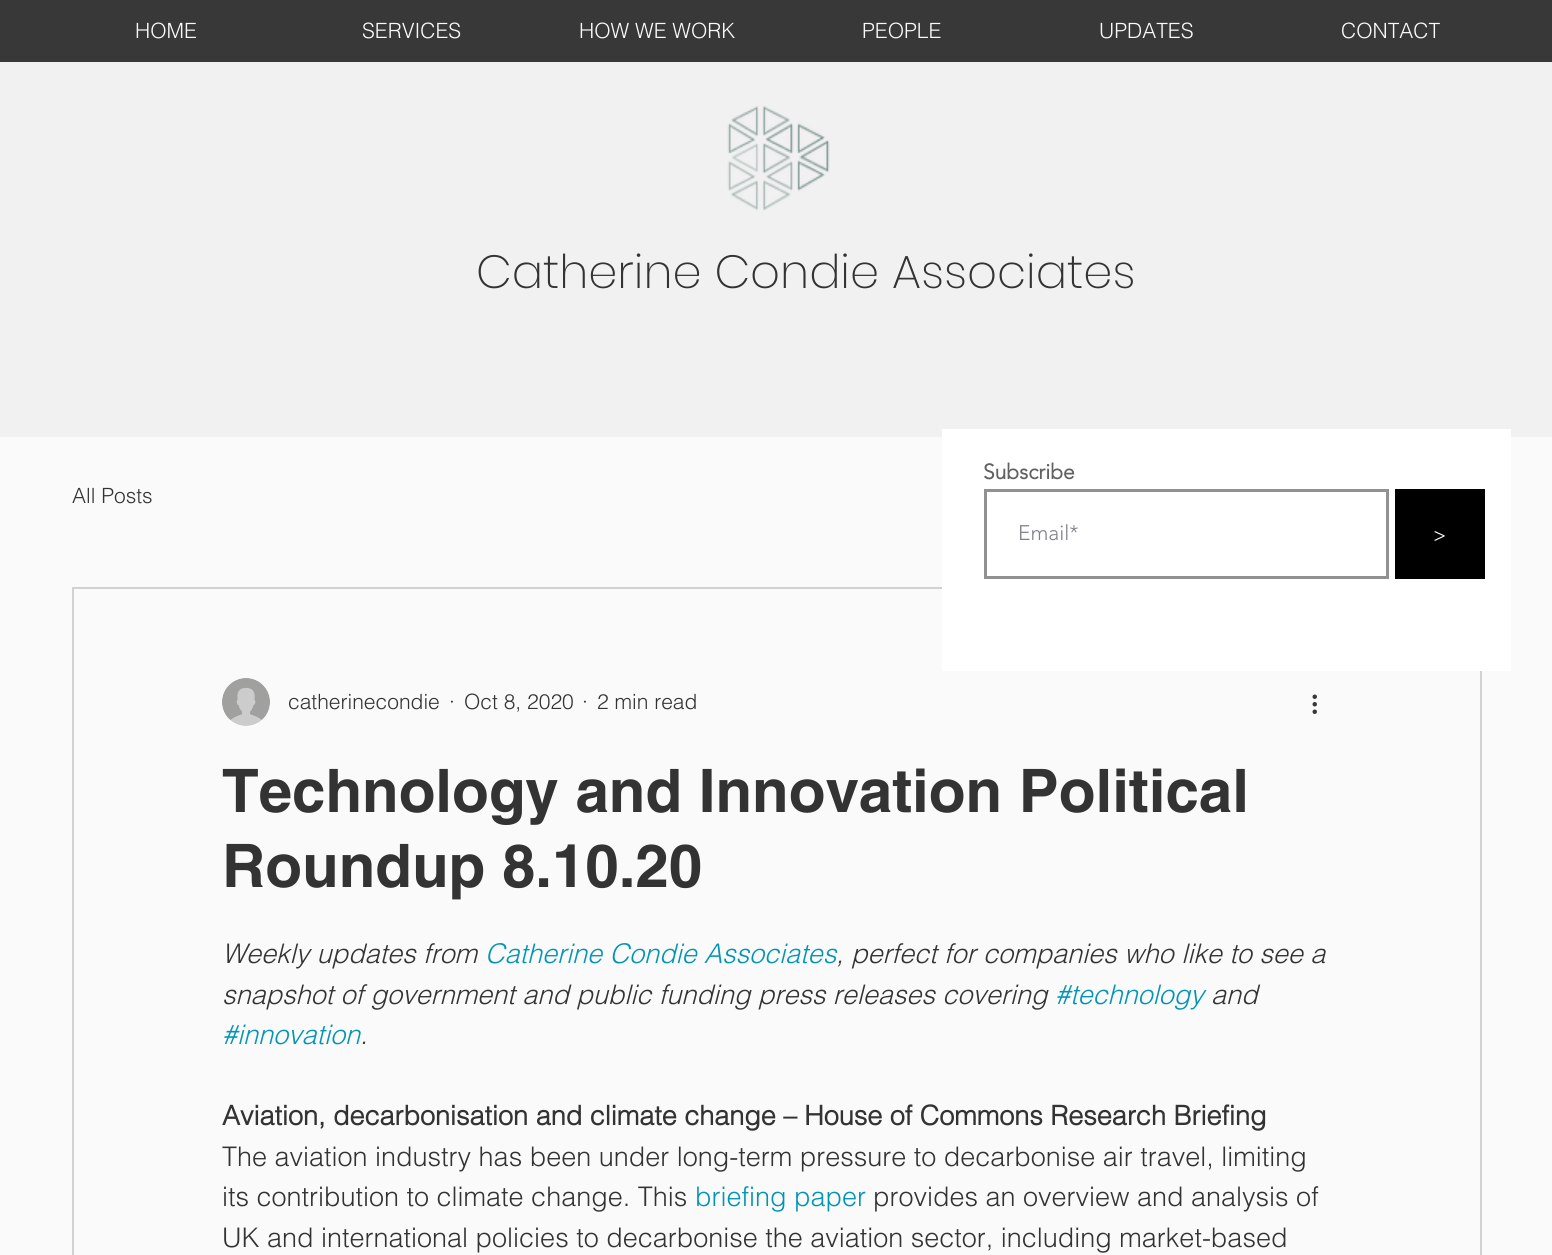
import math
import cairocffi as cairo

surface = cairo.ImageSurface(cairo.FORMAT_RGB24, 1552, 1255)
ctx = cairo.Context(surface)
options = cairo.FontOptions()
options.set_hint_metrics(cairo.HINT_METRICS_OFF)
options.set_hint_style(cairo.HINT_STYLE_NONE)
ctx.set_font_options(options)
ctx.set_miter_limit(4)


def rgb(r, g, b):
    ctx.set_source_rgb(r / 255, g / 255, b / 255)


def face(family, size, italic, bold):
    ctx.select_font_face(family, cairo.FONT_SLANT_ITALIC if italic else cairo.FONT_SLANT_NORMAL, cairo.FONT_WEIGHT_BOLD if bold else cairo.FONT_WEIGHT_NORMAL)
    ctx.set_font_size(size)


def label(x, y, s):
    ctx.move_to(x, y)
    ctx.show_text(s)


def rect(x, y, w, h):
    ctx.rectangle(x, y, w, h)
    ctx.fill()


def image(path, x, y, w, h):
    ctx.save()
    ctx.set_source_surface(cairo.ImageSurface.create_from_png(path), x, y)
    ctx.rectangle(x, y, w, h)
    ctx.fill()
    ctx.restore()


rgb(250, 250, 250)
ctx.paint()
rgb(56, 56, 56)
rect(0, 0, 1552, 62)
face('helvetica Light', 21, 0, 0)
rgb(250, 250, 250)
label(135, 38, 'HOME')
label(362, 38, 'SERVICES')
label(579, 38, 'HOW WE WORK')
label(862, 38, 'PEOPLE')
label(1099, 38, 'UPDATES')
label(1341, 38, 'CONTACT')
rgb(242, 241, 241)
rect(0, 62, 1552, 375)
image('image0.png', 727, 106, 103, 105)
face('Poppins ExtraLight', 46.5, 0, 0)
rgb(51, 51, 51)
label(476, 288, 'Catherine Condie Associates')
ctx.rectangle(73, 588, 1408, 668)
rgb(210, 209, 209)
ctx.stroke()
rgb(255, 255, 255)
rect(942, 429, 569, 242)
face('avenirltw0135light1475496', 21, 0, 1)
rgb(97, 97, 95)
label(983, 479, 'Subscribe')
ctx.rectangle(985.5, 490.5, 402, 87)
rgb(145, 145, 145)
ctx.set_line_width(3)
ctx.stroke()
face('avenirltw0135light1475496 Light', 21, 0, 0)
rgb(127, 128, 138)
label(1018, 540, 'Email*')
rgb(0, 0, 0)
rect(1395, 489, 90, 90)
face('helvetica Light', 20, 0, 0)
rgb(250, 250, 250)
label(1433, 541, '>')
face('helvetica Light', 21, 0, 0)
rgb(51, 51, 51)
label(72, 503, 'All Posts')
image('image1.png', 222, 678, 48, 48)
label(288, 709, 'catherinecondie')
label(449, 709, '·')
label(464, 709, 'Oct 8, 2020')
label(582, 709, '·')
label(597, 709, '2 min read')
image('image2.png', 1312, 694, 5, 20)
face('helvetica', 60, 0, 1)
label(222, 812, 'Technology and Innovation Political')
label(222, 887, 'Roundup 8.10.20')
face('helvetica Light', 27, 1, 0)
label(222, 963, 'Weekly updates from')
rgb(2, 148, 181)
label(485, 963, 'Catherine Condie Associates')
rgb(51, 51, 51)
label(836, 963, ', perfect for companies who like to see a')
label(222, 1004, 'snapshot of government and public funding press releases covering')
rgb(2, 148, 181)
label(1055, 1004, '#technology')
rgb(51, 51, 51)
label(1211, 1004, 'and')
rgb(2, 148, 181)
label(222, 1044, '#innovation')
rgb(51, 51, 51)
label(360, 1044, '.')
face('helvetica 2', 27, 0, 1)
label(222, 1125, 'Aviation, decarbonisation and climate change – House of Commons Research Briefing')
face('helvetica Light', 27, 0, 0)
label(222, 1166, 'The aviation industry has been under long-term pressure to decarbonise air travel, limiting')
label(222, 1206, 'its contribution to climate change. This')
rgb(2, 148, 181)
label(695, 1206, 'briefing paper')
rgb(51, 51, 51)
label(873, 1206, 'provides an overview and analysis of')
label(222, 1247, 'UK and international policies to decarbonise the aviation sector, including market-based')
surface.write_to_png('render.png')
